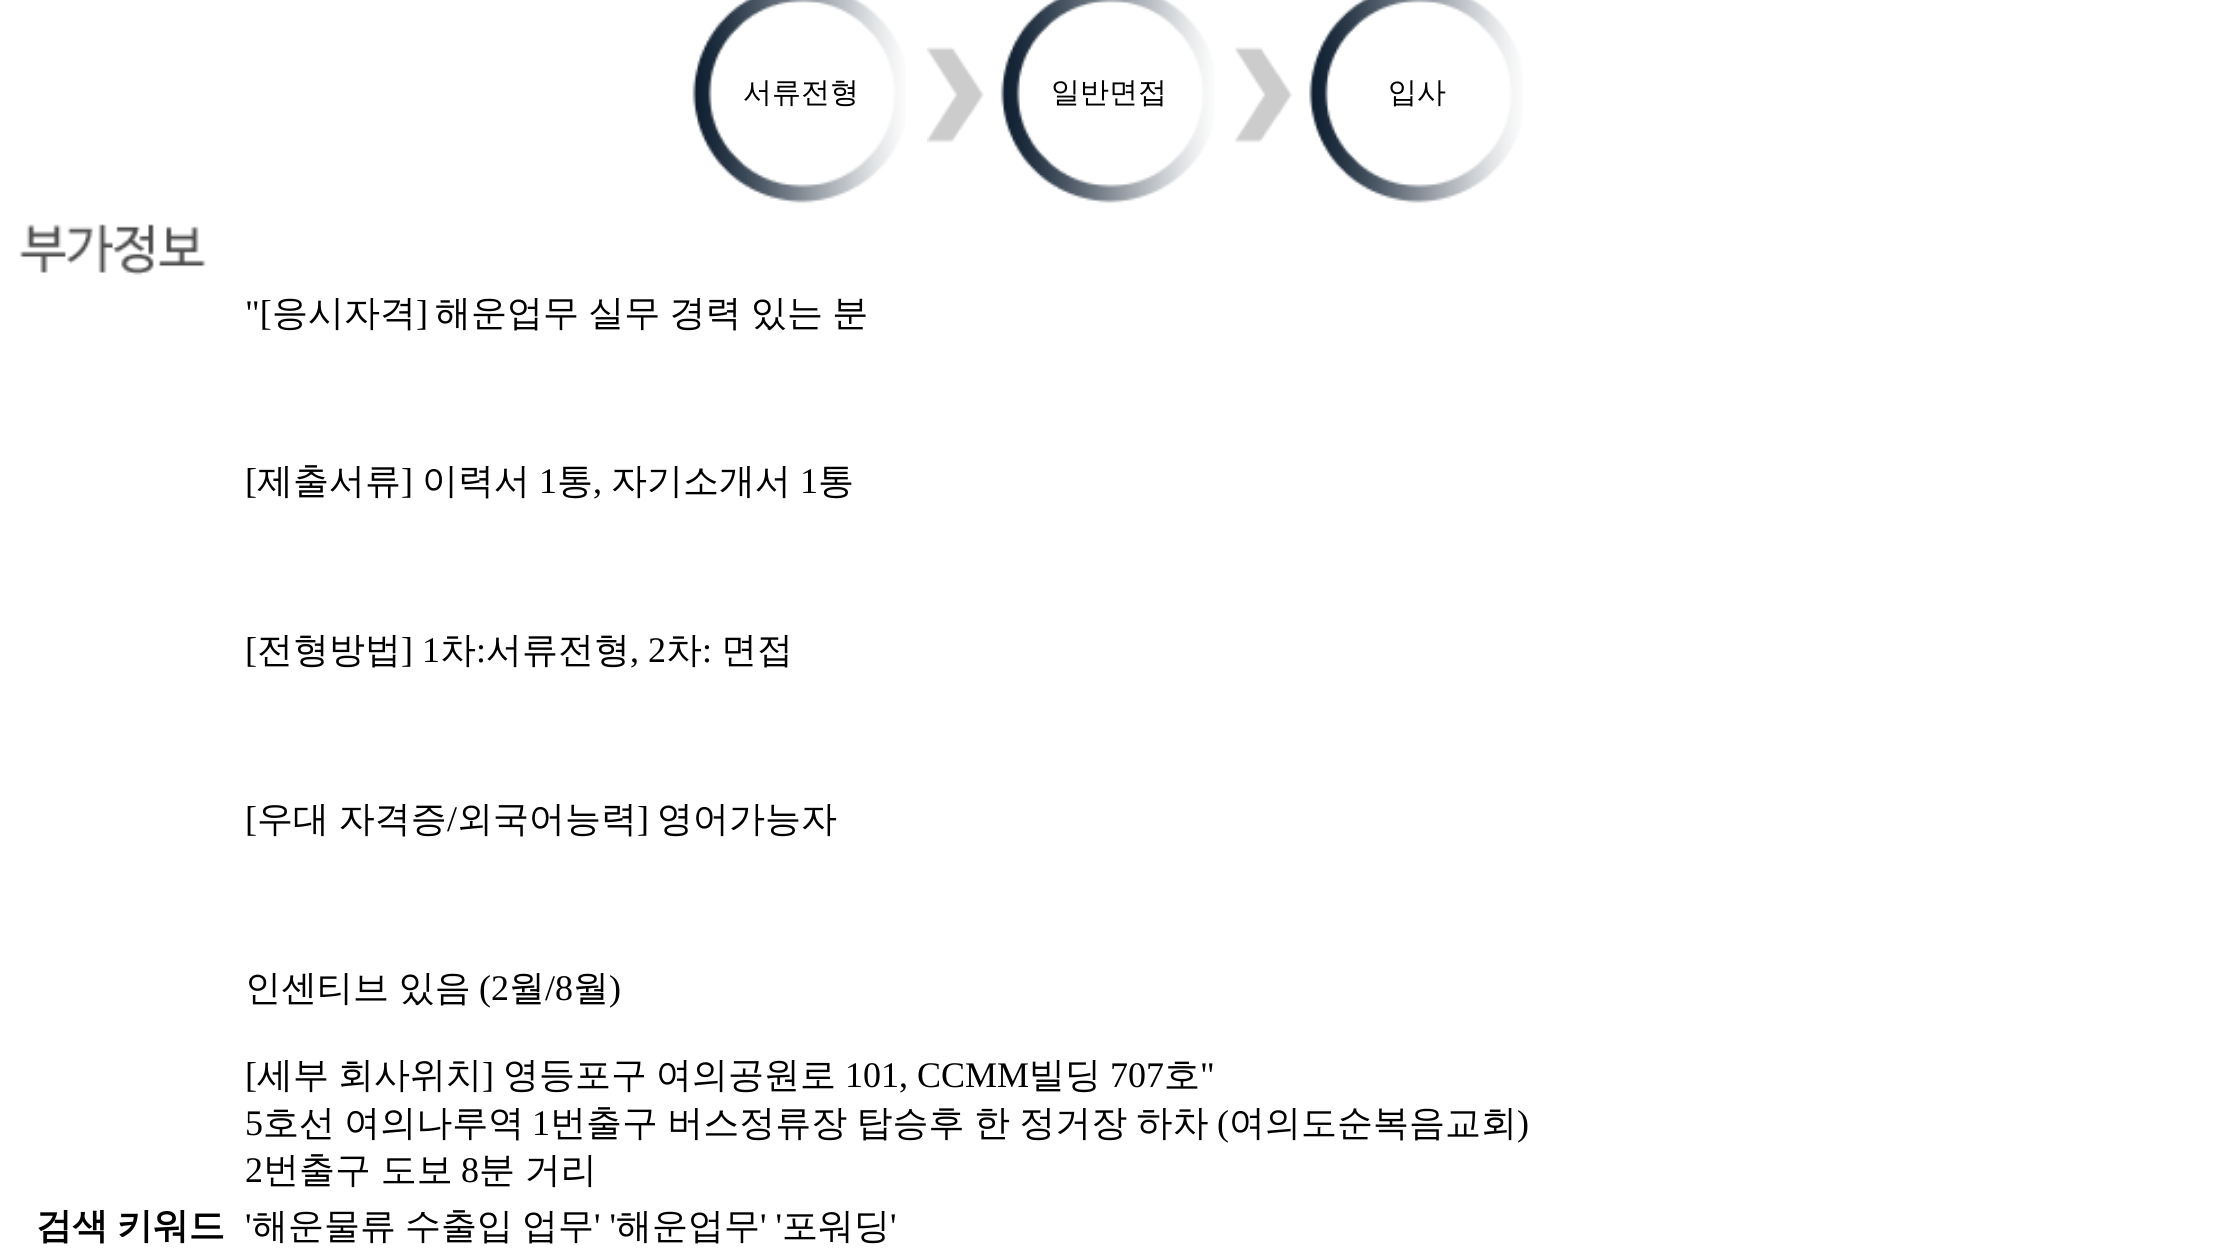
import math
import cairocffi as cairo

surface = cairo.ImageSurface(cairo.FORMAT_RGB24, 2217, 1252)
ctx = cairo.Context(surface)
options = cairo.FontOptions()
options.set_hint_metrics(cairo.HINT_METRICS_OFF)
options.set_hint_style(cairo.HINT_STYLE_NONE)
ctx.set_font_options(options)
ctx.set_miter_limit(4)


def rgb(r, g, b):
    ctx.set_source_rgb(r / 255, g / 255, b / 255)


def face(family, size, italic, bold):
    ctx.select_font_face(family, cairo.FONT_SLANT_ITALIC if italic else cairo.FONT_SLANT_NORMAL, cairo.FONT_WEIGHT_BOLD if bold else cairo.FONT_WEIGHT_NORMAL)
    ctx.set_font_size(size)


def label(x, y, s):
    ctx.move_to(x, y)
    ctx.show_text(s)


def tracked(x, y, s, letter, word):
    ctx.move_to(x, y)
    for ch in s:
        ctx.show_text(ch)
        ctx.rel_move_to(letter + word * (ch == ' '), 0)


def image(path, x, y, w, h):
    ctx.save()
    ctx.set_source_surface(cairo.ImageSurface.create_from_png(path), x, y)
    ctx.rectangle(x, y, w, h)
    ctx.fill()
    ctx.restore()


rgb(255, 255, 255)
ctx.paint()
image('image0.png', 692, 0, 214, 204)
face('WenQuanYi Zen Hei Medium', 29, 0, 0)
rgb(0, 0, 0)
label(743, 102, '서류전형')
image('image1.png', 927, 47, 57, 96)
image('image2.png', 1000, 0, 215, 204)
label(1051, 102, '일반면접')
image('image3.png', 1235, 47, 57, 96)
image('image4.png', 1309, 0, 214, 204)
label(1388, 102, '입사')
image('image5.png', 19, 224, 187, 51)
face('Liberation Serif', 36, 0, 0)
label(245, 325, '"[')
face('WenQuanYi Zen Hei Medium', 36, 0, 0)
label(272, 325, '응시자격')
face('Liberation Serif', 36, 0, 0)
label(416, 325, ']')
face('WenQuanYi Zen Hei Medium', 36, 0, 0)
tracked(435, 325, '해운업무 실무 경력 있는 분', 0, -1.5)
face('Liberation Serif', 36, 0, 0)
label(245, 493, '[')
face('WenQuanYi Zen Hei Medium', 36, 0, 0)
label(257, 493, '제출서류')
face('Liberation Serif', 36, 0, 0)
label(401, 493, ']')
face('WenQuanYi Zen Hei Medium', 36, 0, 0)
label(422, 493, '이력서')
face('Liberation Serif', 36, 0, 0)
label(539, 493, '1')
face('WenQuanYi Zen Hei Medium', 36, 0, 0)
label(557, 493, '통')
label(611, 493, '자기소개서')
face('Liberation Serif', 36, 0, 0)
label(800, 493, '1')
face('WenQuanYi Zen Hei Medium', 36, 0, 0)
label(818, 493, '통')
face('Liberation Serif', 36, 0, 0)
label(593, 493, ',')
label(245, 662, '[')
face('WenQuanYi Zen Hei Medium', 36, 0, 0)
label(257, 662, '전형방법')
face('Liberation Serif', 36, 0, 0)
label(401, 662, '] 1')
face('WenQuanYi Zen Hei Medium', 36, 0, 0)
label(440, 662, '차')
face('Liberation Serif', 36, 0, 0)
label(476, 662, ':')
face('WenQuanYi Zen Hei Medium', 36, 0, 0)
label(486, 662, '서류전형')
face('Liberation Serif', 36, 0, 0)
label(630, 662, ', 2')
face('WenQuanYi Zen Hei Medium', 36, 0, 0)
label(666, 662, '차')
face('Liberation Serif', 36, 0, 0)
label(702, 662, ':')
face('WenQuanYi Zen Hei Medium', 36, 0, 0)
label(721, 662, '면접')
face('Liberation Serif', 36, 0, 0)
label(245, 831, '[')
face('WenQuanYi Zen Hei Medium', 36, 0, 0)
tracked(257, 831, '우대 자격증', 0, -1)
face('Liberation Serif', 36, 0, 0)
label(447, 831, '/')
face('WenQuanYi Zen Hei Medium', 36, 0, 0)
label(457, 831, '외국어능력')
face('Liberation Serif', 36, 0, 0)
label(637, 831, ']')
face('WenQuanYi Zen Hei Medium', 36, 0, 0)
label(657, 831, '영어가능자')
tracked(245, 1000, '인센티브 있음', 0, -1)
face('Liberation Serif', 36, 0, 0)
label(479, 1000, '(2')
face('WenQuanYi Zen Hei Medium', 36, 0, 0)
label(509, 1000, '월')
face('Liberation Serif', 36, 0, 0)
label(545, 1000, '/8')
face('WenQuanYi Zen Hei Medium', 36, 0, 0)
label(573, 1000, '월')
face('Liberation Serif', 36, 0, 0)
label(609, 1000, ')')
label(245, 1087, '[')
face('WenQuanYi Zen Hei Medium', 36, 0, 0)
label(257, 1087, '세부')
label(338, 1087, '회사위치')
face('Liberation Serif', 36, 0, 0)
label(482, 1087, ']')
face('WenQuanYi Zen Hei Medium', 36, 0, 0)
label(503, 1087, '영등포구')
label(656, 1087, '여의공원로')
face('Liberation Serif', 36, 0, 0)
label(845, 1087, '101, CCMM')
face('WenQuanYi Zen Hei Medium', 36, 0, 0)
label(1029, 1087, '빌딩')
face('Liberation Serif', 36, 0, 0)
label(1110, 1087, '707')
face('WenQuanYi Zen Hei Medium', 36, 0, 0)
label(1164, 1087, '호')
face('Liberation Serif', 36, 0, 0)
label(1200, 1087, '"')
label(245, 1135, '5')
face('WenQuanYi Zen Hei Medium', 36, 0, 0)
tracked(263, 1135, '호선 여의나루역', 0, -1.5)
face('Liberation Serif', 36, 0, 0)
label(532, 1135, '1')
face('WenQuanYi Zen Hei Medium', 36, 0, 0)
tracked(550, 1135, '번출구 버스정류장 탑승후 한 정거장 하차', 0, -1.5)
face('Liberation Serif', 36, 0, 0)
label(1217, 1135, '(')
face('WenQuanYi Zen Hei Medium', 36, 0, 0)
label(1229, 1135, '여의도순복음교회')
face('Liberation Serif', 36, 0, 0)
label(1517, 1135, ')')
label(245, 1182, '2')
face('WenQuanYi Zen Hei Medium', 36, 0, 0)
tracked(263, 1182, '번출구 도보', 0, -1)
face('Liberation Serif', 36, 0, 0)
label(461, 1182, '8')
face('WenQuanYi Zen Hei Medium', 36, 0, 0)
tracked(479, 1182, '분 거리', 0, -1)
face('WenQuanYi Zen Hei', 36, 0, 1)
tracked(36, 1238, '검색 키워드', 0, -2)
face('Liberation Serif', 36, 0, 0)
label(245, 1238, '\'')
face('WenQuanYi Zen Hei Medium', 36, 0, 0)
label(252, 1238, '해운물류')
label(405, 1238, '수출입')
label(522, 1238, '업무')
face('Liberation Serif', 36, 0, 0)
label(594, 1238, '\' \'')
face('WenQuanYi Zen Hei Medium', 36, 0, 0)
label(616, 1238, '해운업무')
face('Liberation Serif', 36, 0, 0)
label(760, 1238, '\' \'')
face('WenQuanYi Zen Hei Medium', 36, 0, 0)
label(782, 1238, '포워딩')
face('Liberation Serif', 36, 0, 0)
label(890, 1238, '\'')
surface.write_to_png('render.png')
